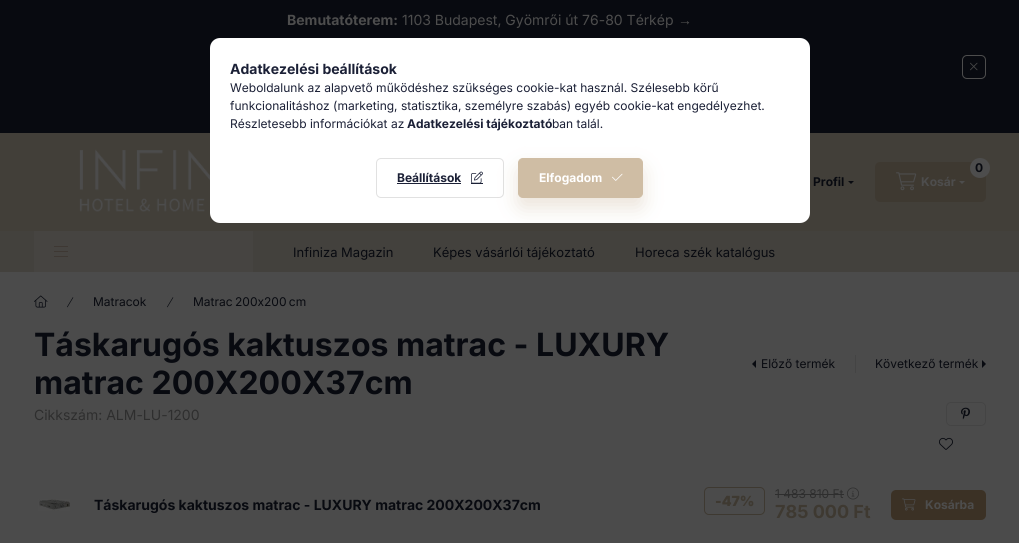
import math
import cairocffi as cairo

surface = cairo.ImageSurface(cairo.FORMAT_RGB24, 1019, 543)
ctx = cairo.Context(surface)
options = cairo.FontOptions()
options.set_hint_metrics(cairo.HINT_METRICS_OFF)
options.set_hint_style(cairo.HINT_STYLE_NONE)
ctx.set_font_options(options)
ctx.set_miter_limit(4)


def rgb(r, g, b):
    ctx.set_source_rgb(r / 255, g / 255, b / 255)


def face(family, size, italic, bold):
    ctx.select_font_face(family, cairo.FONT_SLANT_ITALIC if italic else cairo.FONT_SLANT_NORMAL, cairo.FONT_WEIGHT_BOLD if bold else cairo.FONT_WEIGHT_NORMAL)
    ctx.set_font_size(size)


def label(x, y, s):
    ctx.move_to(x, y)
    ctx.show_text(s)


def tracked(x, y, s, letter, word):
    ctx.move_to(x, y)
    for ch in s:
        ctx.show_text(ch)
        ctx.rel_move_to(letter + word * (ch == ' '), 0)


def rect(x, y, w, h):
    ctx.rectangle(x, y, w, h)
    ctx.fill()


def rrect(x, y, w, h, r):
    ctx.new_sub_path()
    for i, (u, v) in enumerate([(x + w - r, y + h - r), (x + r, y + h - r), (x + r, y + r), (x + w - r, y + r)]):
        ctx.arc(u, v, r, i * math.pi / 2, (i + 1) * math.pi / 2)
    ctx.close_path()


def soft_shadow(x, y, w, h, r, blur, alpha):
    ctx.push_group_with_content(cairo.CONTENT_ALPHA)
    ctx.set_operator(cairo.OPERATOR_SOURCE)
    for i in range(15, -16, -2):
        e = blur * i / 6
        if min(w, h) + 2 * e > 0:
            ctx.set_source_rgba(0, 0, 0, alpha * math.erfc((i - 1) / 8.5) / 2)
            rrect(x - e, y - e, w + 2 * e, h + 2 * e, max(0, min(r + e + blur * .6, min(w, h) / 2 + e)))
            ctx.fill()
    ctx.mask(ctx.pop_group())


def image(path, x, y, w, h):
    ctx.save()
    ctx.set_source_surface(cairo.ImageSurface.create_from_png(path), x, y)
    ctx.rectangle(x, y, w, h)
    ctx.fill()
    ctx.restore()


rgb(75, 75, 75)
ctx.paint()
rgb(8, 10, 16)
rect(0, 0, 1019, 133)
face('Inter', 14, 0, 1)
rgb(77, 77, 77)
label(287, 25, 'Bemutatóterem:')
face('Inter', 14, 0, 0)
label(402, 25, '1103 Budapest, Gyömrői út 76-80 Térkép')
face('Liberation Sans', 14, 0, 0)
label(678, 25, '→')
rrect(962.5, 55.5, 23, 23, 4.5)
ctx.set_line_width(1)
ctx.stroke()
image('image0.png', 970, 62, 8, 9)
rgb(66, 63, 57)
rect(0, 133, 1019, 98)
image('image1.png', 79, 149, 131, 63)
face('Inter', 12, 0, 1)
rgb(8, 10, 16)
label(813, 186, 'Profil')
ctx.new_path()
ctx.move_to(848, 181)
ctx.line_to(854, 181)
ctx.line_to(851, 184)
ctx.close_path()
ctx.fill()
rgb(62, 57, 49)
rrect(875, 162, 111, 40, 5)
ctx.fill()
rgb(77, 77, 77)
ctx.arc(980, 168, 10, 0, 2 * math.pi)
ctx.fill()
rgb(8, 10, 16)
label(975, 172, '0')
image('image2.png', 896, 172, 21, 19)
rgb(77, 77, 77)
label(921, 186, 'Kosár')
ctx.new_path()
ctx.move_to(959, 181)
ctx.line_to(965, 181)
ctx.line_to(962, 184)
ctx.close_path()
ctx.fill()
rgb(67, 65, 61)
rect(0, 231, 1019, 41)
rgb(70, 68, 65)
rect(34, 231, 219, 41)
rgb(62, 56, 51)
rect(54, 246, 14, 1)
rect(54, 251, 14, 1)
rect(54, 256, 14, 1)
face('Inter', 13, 0, 0)
rgb(8, 10, 16)
label(293, 257, 'Infiniza Magazin')
label(433, 257, 'Képes vásárlói tájékoztató')
label(635, 257, 'Horeca szék katalógus')
image('image3.png', 34, 295, 14, 13)
image('image4.png', 67, 297, 7, 11)
face('Inter', 12, 0, 0)
label(93, 306, 'Matracok')
image('image4.png', 167, 297, 7, 11)
tracked(193, 306, 'Matrac 200x200 cm', 0, -1)
face('Inter', 32, 0, 1)
label(34, 356, 'Táskarugós kaktuszos matrac - LUXURY')
label(34, 394, 'matrac 200X200X37cm')
ctx.new_path()
ctx.move_to(756, 368)
ctx.line_to(756, 360)
ctx.line_to(752, 364)
ctx.close_path()
ctx.fill()
face('Inter', 12, 0, 0)
label(761, 368, 'Előző termék')
rgb(68, 68, 68)
rect(855, 355, 1, 18)
rgb(8, 10, 16)
label(875, 368, 'Következő termék')
ctx.new_path()
ctx.move_to(982, 368)
ctx.line_to(982, 360)
ctx.line_to(986, 364)
ctx.close_path()
ctx.fill()
face('Inter', 14, 0, 0)
rgb(46, 46, 46)
label(34, 420, 'Cikkszám: ALM-LU-1200')
rrect(946.5, 402.5, 39, 23, 4.5)
rgb(68, 68, 68)
ctx.stroke()
image('image5.png', 961, 407, 9, 13)
image('image6.png', 939, 437, 14, 13)
image('image7.png', 38, 499, 32, 12)
face('Inter', 14, 0, 1)
rgb(8, 10, 16)
label(94, 510, 'Táskarugós kaktuszos matrac - LUXURY matrac 200X200X37cm')
rrect(704.5, 487.5, 60, 27, 4.5)
rgb(62, 57, 49)
ctx.stroke()
face('Inter Black', 14, 0, 0)
label(715, 506, '-47%')
face('Inter', 12, 0, 0)
rgb(46, 46, 46)
label(775, 498, '1 483 810 Ft')
rect(775, 494, 69, 1)
image('image8.png', 847, 487, 12, 13)
face('Inter', 18, 0, 1)
rgb(62, 57, 49)
label(775, 518, '785 000 Ft')
rgb(59, 49, 37)
rrect(891, 490, 95, 30, 5)
ctx.fill()
image('image9.png', 902, 498, 14, 13)
face('Inter', 12, 0, 1)
rgb(77, 77, 77)
label(925, 509, 'Kosárba')
rgb(255, 255, 255)
rrect(210, 38, 600, 185, 10)
ctx.fill()
face('Inter', 14, 0, 1)
rgb(27, 32, 54)
label(230, 74, 'Adatkezelési beállítások')
face('Inter', 12, 0, 0)
label(230, 92, 'Weboldalunk az alapvető működéshez szükséges cookie-kat használ. Szélesebb körű')
label(230, 110, 'funkcionalitáshoz (marketing, statisztika, személyre szabás) egyéb cookie-kat engedélyezhet.')
label(230, 128, 'Részletesebb információkat az')
face('Inter', 12, 0, 1)
label(407, 128, 'Adatkezelési tájékoztató')
face('Inter', 12, 0, 0)
label(552, 128, 'ban talál.')
rrect(376.5, 158.5, 127, 39, 4.5)
rgb(225, 225, 225)
ctx.stroke()
face('Inter', 12, 0, 1)
rgb(27, 32, 54)
label(397, 182, 'Beállítások')
rect(397, 183, 64, 1)
image('image10.png', 471, 171, 12, 12)
rect(471, 183, 12, 1)
ctx.save()
rrect(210, 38, 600, 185, 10)
ctx.clip()
rgb(207, 189, 164)
soft_shadow(518, 168, 125, 40, 5, 10, 0.4)
ctx.restore()
rgb(207, 189, 164)
rrect(518.5, 158.5, 124, 39, 4.5)
ctx.fill_preserve()
ctx.stroke()
rgb(255, 255, 255)
label(539, 182, 'Elfogadom')
image('image11.png', 612, 173, 11, 8)
surface.write_to_png('render.png')
